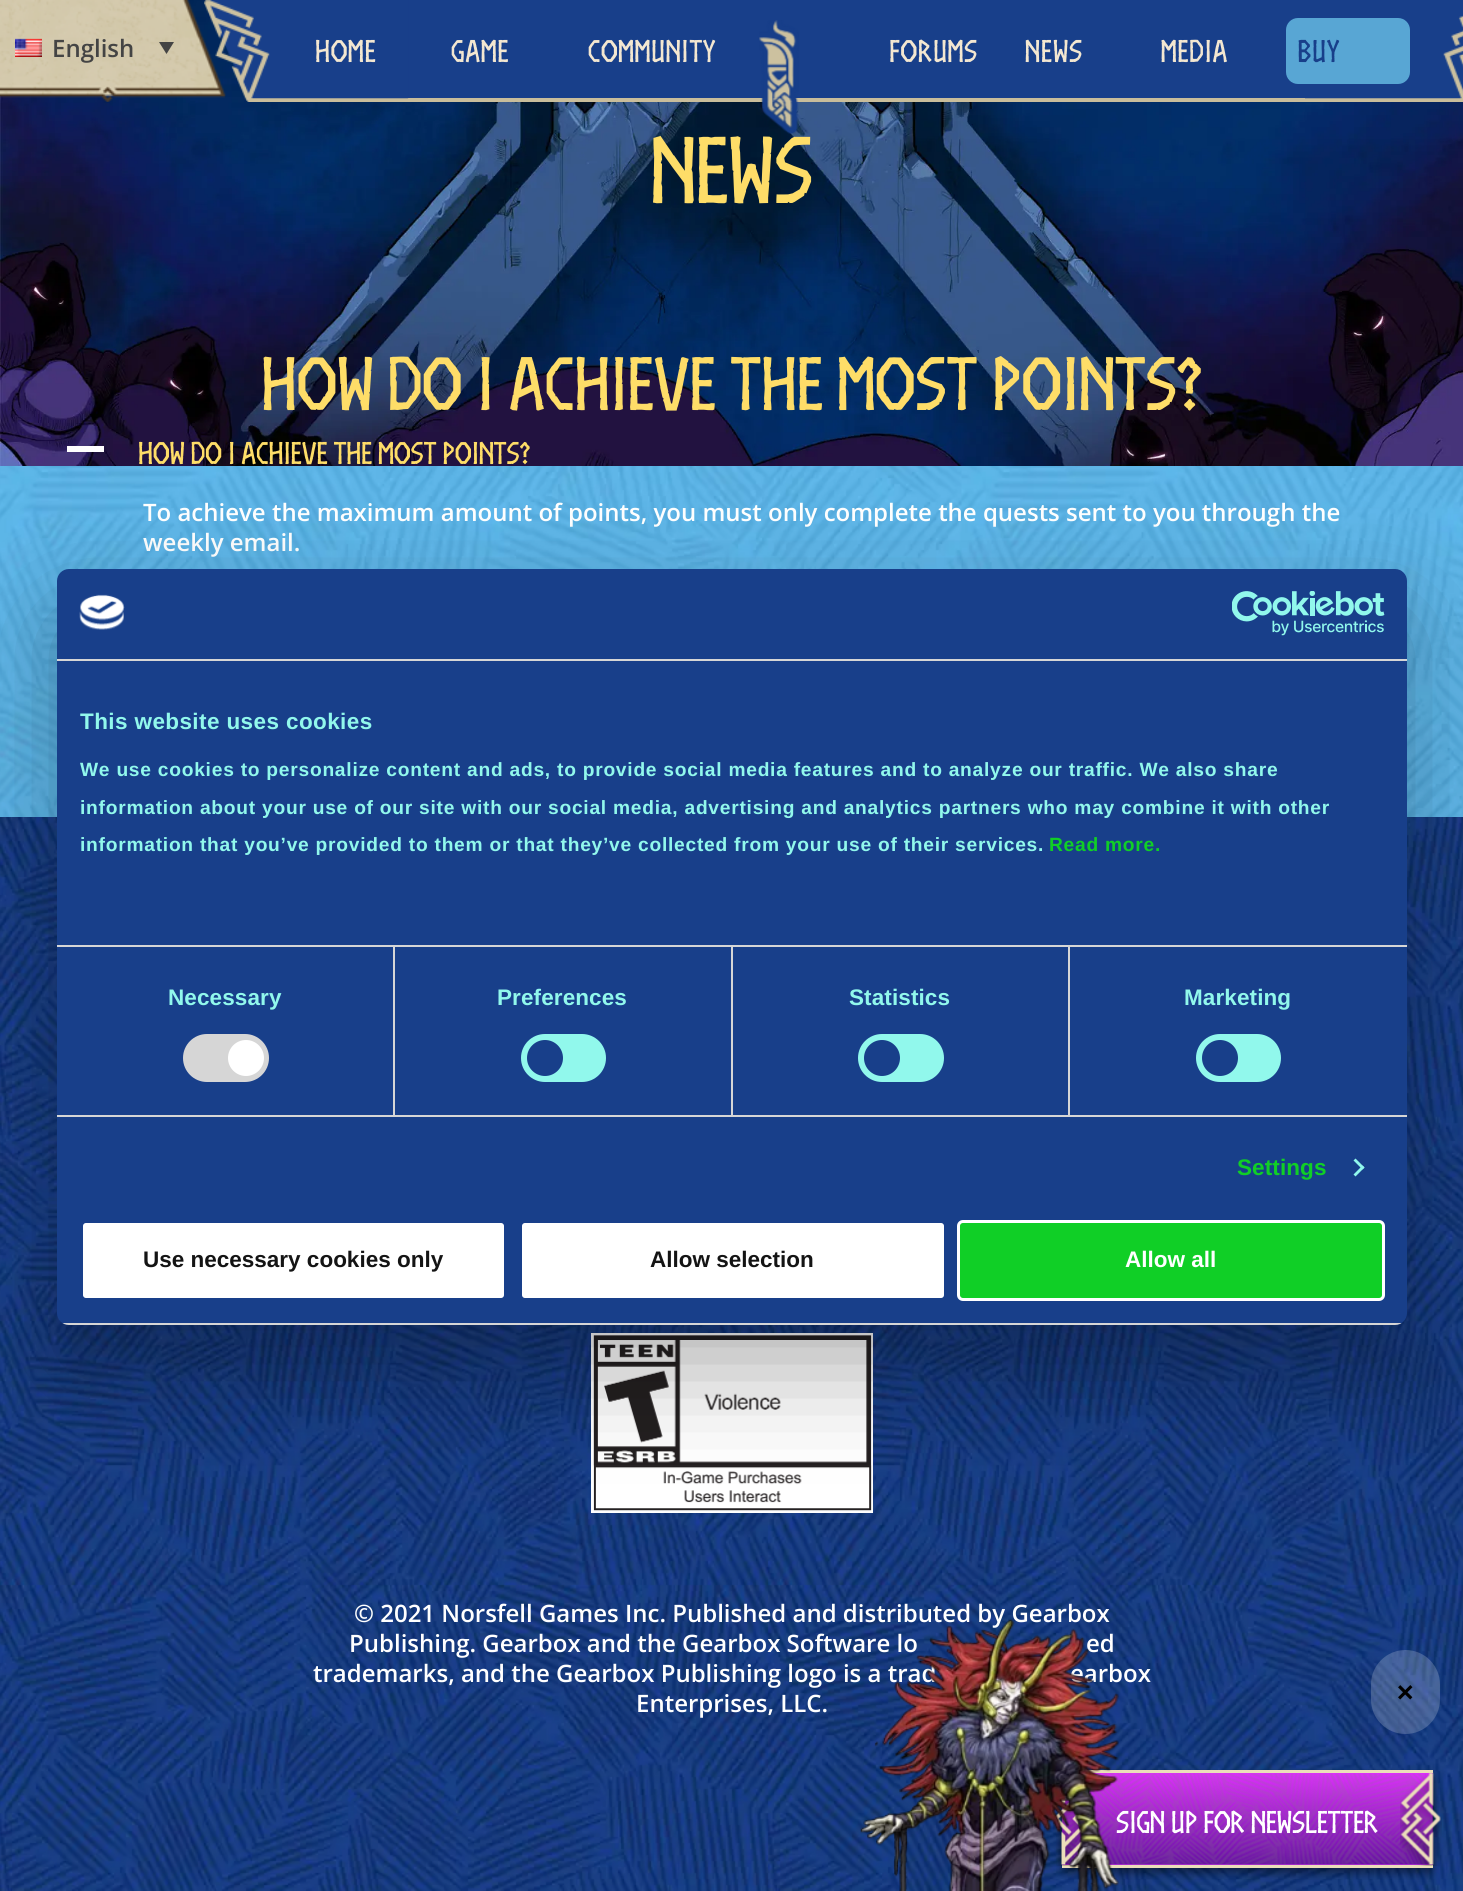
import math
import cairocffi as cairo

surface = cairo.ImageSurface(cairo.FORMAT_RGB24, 1463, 1891)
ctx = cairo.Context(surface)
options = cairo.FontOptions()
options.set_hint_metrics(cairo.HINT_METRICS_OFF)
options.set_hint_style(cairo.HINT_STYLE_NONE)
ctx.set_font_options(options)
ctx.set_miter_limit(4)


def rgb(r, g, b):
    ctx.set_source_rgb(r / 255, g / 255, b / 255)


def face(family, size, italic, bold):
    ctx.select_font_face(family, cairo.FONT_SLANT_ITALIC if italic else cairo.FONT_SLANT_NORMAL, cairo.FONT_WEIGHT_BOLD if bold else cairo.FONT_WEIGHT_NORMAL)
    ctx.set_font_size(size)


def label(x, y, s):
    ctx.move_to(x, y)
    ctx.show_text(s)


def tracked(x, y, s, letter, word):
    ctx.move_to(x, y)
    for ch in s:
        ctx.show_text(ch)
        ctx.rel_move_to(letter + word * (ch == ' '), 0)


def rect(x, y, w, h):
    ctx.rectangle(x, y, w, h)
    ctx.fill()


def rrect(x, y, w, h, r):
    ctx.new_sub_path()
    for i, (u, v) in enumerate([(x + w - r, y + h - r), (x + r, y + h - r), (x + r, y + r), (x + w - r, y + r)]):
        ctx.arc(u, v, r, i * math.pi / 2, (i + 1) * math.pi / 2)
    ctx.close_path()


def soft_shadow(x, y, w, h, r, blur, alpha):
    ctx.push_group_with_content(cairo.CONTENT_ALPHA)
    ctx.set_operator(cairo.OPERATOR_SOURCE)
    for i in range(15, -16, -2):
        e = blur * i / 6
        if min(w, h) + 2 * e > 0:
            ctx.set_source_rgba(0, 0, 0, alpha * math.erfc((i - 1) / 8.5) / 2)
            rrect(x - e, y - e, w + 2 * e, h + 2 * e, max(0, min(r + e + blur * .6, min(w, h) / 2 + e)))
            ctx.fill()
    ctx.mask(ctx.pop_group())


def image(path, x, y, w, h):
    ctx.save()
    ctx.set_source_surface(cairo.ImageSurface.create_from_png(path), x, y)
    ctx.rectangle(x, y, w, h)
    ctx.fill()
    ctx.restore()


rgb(255, 255, 255)
ctx.paint()
image('image6.png', 0, 0, 1463, 466)
image('image0.png', 0, 0, 226, 102)
image('image1.png', 15, 38, 27, 19)
face('Open Sans SemiBold', 24, 0, 0)
rgb(68, 68, 68)
label(52, 57, 'English')
ctx.new_path()
ctx.move_to(159, 42)
ctx.line_to(174, 42)
ctx.line_to(166.5, 54)
ctx.close_path()
ctx.fill()
rgb(24, 63, 138)
rect(407, 0, 1056, 98)
rgb(201, 189, 155)
rect(407, 98, 1056, 4)
image('image2.png', 204, 0, 205, 102)
face('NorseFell', 30, 0, 1)
rgb(243, 231, 209)
tracked(315, 62, 'HOME', 0.75, 0)
tracked(451, 62, 'GAME', 0.75, 0)
tracked(588, 62, 'COMMUNITY', 0.75, 0)
image('image3.png', 759, 20, 40, 114)
tracked(889, 62, 'FORUMS', 0.75, 0)
tracked(1025, 62, 'NEWS', 0.75, 0)
tracked(1161, 62, 'MEDIA', 0.75, 0)
image('image4.png', 1305, 15, 158, 84)
rgb(88, 166, 212)
rrect(1286, 18, 124, 66, 12)
ctx.fill()
rgb(24, 63, 138)
tracked(1298, 62, 'BUY', 0.75, 0)
image('image5.png', 0, 466, 1463, 351)
face('NorseFell', 90, 0, 1)
rgb(254, 221, 104)
label(651, 203, 'News')
face('NorseFell', 72, 0, 1)
label(261, 410, 'How do I achieve the most points?')
rgb(255, 255, 255)
rect(67, 446, 37, 6)
face('NorseFell', 30, 0, 1)
rgb(254, 221, 104)
label(138, 464, 'How do I achieve the most points?')
face('Open Sans SemiBold', 24, 0, 0)
rgb(255, 255, 255)
label(143, 521, 'To achieve the maximum amount of points, you must only complete the quests sent to you through the')
label(143, 551, 'weekly email.')
image('image7.png', 0, 817, 1463, 1074)
image('image8.png', 591, 1333, 282, 180)
label(354, 1622, '© 2021 Norsfell Games Inc. Published and distributed by Gearbox')
label(349, 1652, 'Publishing. Gearbox and the Gearbox Software lo')
label(1086, 1652, 'ed')
label(313, 1682, 'trademarks, and the Gearbox Publishing logo is a trad')
label(1070, 1682, 'earbox')
label(636, 1712, 'Enterprises, LLC.')
rgb(0, 0, 0)
soft_shadow(57, 617, 1350, 756, 12, 51, 0.3)
rgb(24, 63, 138)
rrect(57, 569, 1350, 756, 12)
ctx.fill()
rgb(214, 214, 214)
rect(57, 659, 1350, 2)
image('image9.png', 79, 594, 46, 36)
image('image10.png', 1232, 591, 153, 45)
rect(57, 945, 1350, 2)
face('Liberation Sans', 22.5, 0, 1)
rgb(145, 248, 236)
tracked(80, 729, 'This website uses cookies', 0.4, 0)
face('Liberation Sans', 19.2, 0, 1)
tracked(80, 776, 'We use cookies to personalize content and ads, to provide social media features and to analyze our traffic. We also share', 0.75, 0)
tracked(80, 814, 'information about your use of our site with our social media, advertising and analytics partners who may combine it with other', 0.75, 0)
tracked(80, 851, 'information that you’ve provided to them or that they’ve collected from your use of their services.', 0.75, 0)
rgb(16, 207, 38)
tracked(1049, 851, 'Read more.', 0.75, 0)
rgb(214, 214, 214)
rect(57, 1115, 1350, 2)
rect(393, 947, 2, 168)
face('Liberation Sans', 22.5, 0, 1)
rgb(145, 248, 236)
tracked(168, 1005, 'Necessary', 0.1, 0)
rgb(214, 214, 214)
rrect(183, 1034, 86, 48, 24)
ctx.fill()
rgb(255, 255, 255)
ctx.arc(246, 1058, 18, 0, 2 * math.pi)
ctx.fill()
rgb(214, 214, 214)
rect(731, 947, 2, 168)
rgb(145, 248, 236)
tracked(497, 1005, 'Preferences', 0.1, 0)
rrect(521, 1034, 85, 48, 24)
ctx.fill()
rgb(24, 63, 138)
ctx.arc(545, 1058, 18, 0, 2 * math.pi)
ctx.fill()
rgb(214, 214, 214)
rect(1068, 947, 2, 168)
rgb(145, 248, 236)
tracked(849, 1005, 'Statistics', 0.1, 0)
rrect(858, 1034, 86, 48, 24)
ctx.fill()
rgb(24, 63, 138)
ctx.arc(882, 1058, 18, 0, 2 * math.pi)
ctx.fill()
rgb(145, 248, 236)
tracked(1184, 1005, 'Marketing', 0.1, 0)
rrect(1196, 1034, 85, 48, 24)
ctx.fill()
rgb(24, 63, 138)
ctx.arc(1220, 1058, 18, 0, 2 * math.pi)
ctx.fill()
rgb(16, 207, 38)
tracked(1237, 1175, 'Settings', 0.1, 0)
rgb(145, 248, 236)
ctx.new_path()
ctx.move_to(1355.5, 1158.5)
ctx.line_to(1364.5, 1167.5)
ctx.line_to(1362.5, 1169.5)
ctx.line_to(1353.5, 1160.5)
ctx.close_path()
ctx.fill()
ctx.new_path()
ctx.move_to(1362.5, 1165.5)
ctx.line_to(1364.5, 1167.5)
ctx.line_to(1355.5, 1176.5)
ctx.line_to(1353.5, 1174.5)
ctx.close_path()
ctx.fill()
ctx.save()
rrect(57, 569, 1350, 756, 12)
ctx.clip()
rgb(214, 214, 214)
rect(57, 1323, 1350, 2)
ctx.restore()
rgb(255, 255, 255)
rrect(81.5, 1221.5, 424, 78, 4.5)
ctx.fill_preserve()
rgb(24, 63, 138)
ctx.set_line_width(3)
ctx.stroke()
rgb(20, 20, 20)
label(143, 1267, 'Use necessary cookies only')
rgb(255, 255, 255)
rrect(520.5, 1221.5, 425, 78, 4.5)
ctx.fill_preserve()
rgb(24, 63, 138)
ctx.stroke()
rgb(20, 20, 20)
label(650, 1267, 'Allow selection')
rgb(16, 207, 38)
rrect(958.5, 1221.5, 425, 78, 4.5)
ctx.fill_preserve()
rgb(255, 255, 255)
ctx.stroke()
label(1125, 1267, 'Allow all')
rgb(103, 15, 164)
rect(1432, 1773, 1, 92)
image('image12.png', 1056, 1769, 383, 111)
rgb(235, 222, 186)
rect(1086, 1770, 347, 3)
rect(1062, 1865, 371, 3)
image('image13.png', 1053, 1795, 43, 71)
face('NorseFell', 30, 0, 1)
rgb(255, 255, 255)
label(1116, 1833, 'Sign up for newsletter')
image('image11.png', 860, 1619, 259, 272)
ctx.set_source_rgba(1, 1, 1, 0.2)
rrect(1371, 1650, 69, 84, 34.5)
ctx.fill()
face('Open Sans SemiBold', 36, 0, 0)
rgb(0, 0, 0)
ctx.save()
ctx.translate(1389, 1694)
ctx.rotate(45 * math.pi / 180)
label(0, 0, '+')
ctx.restore()
image('image14.png', 1400, 1772, 42, 94)
surface.write_to_png('render.png')
